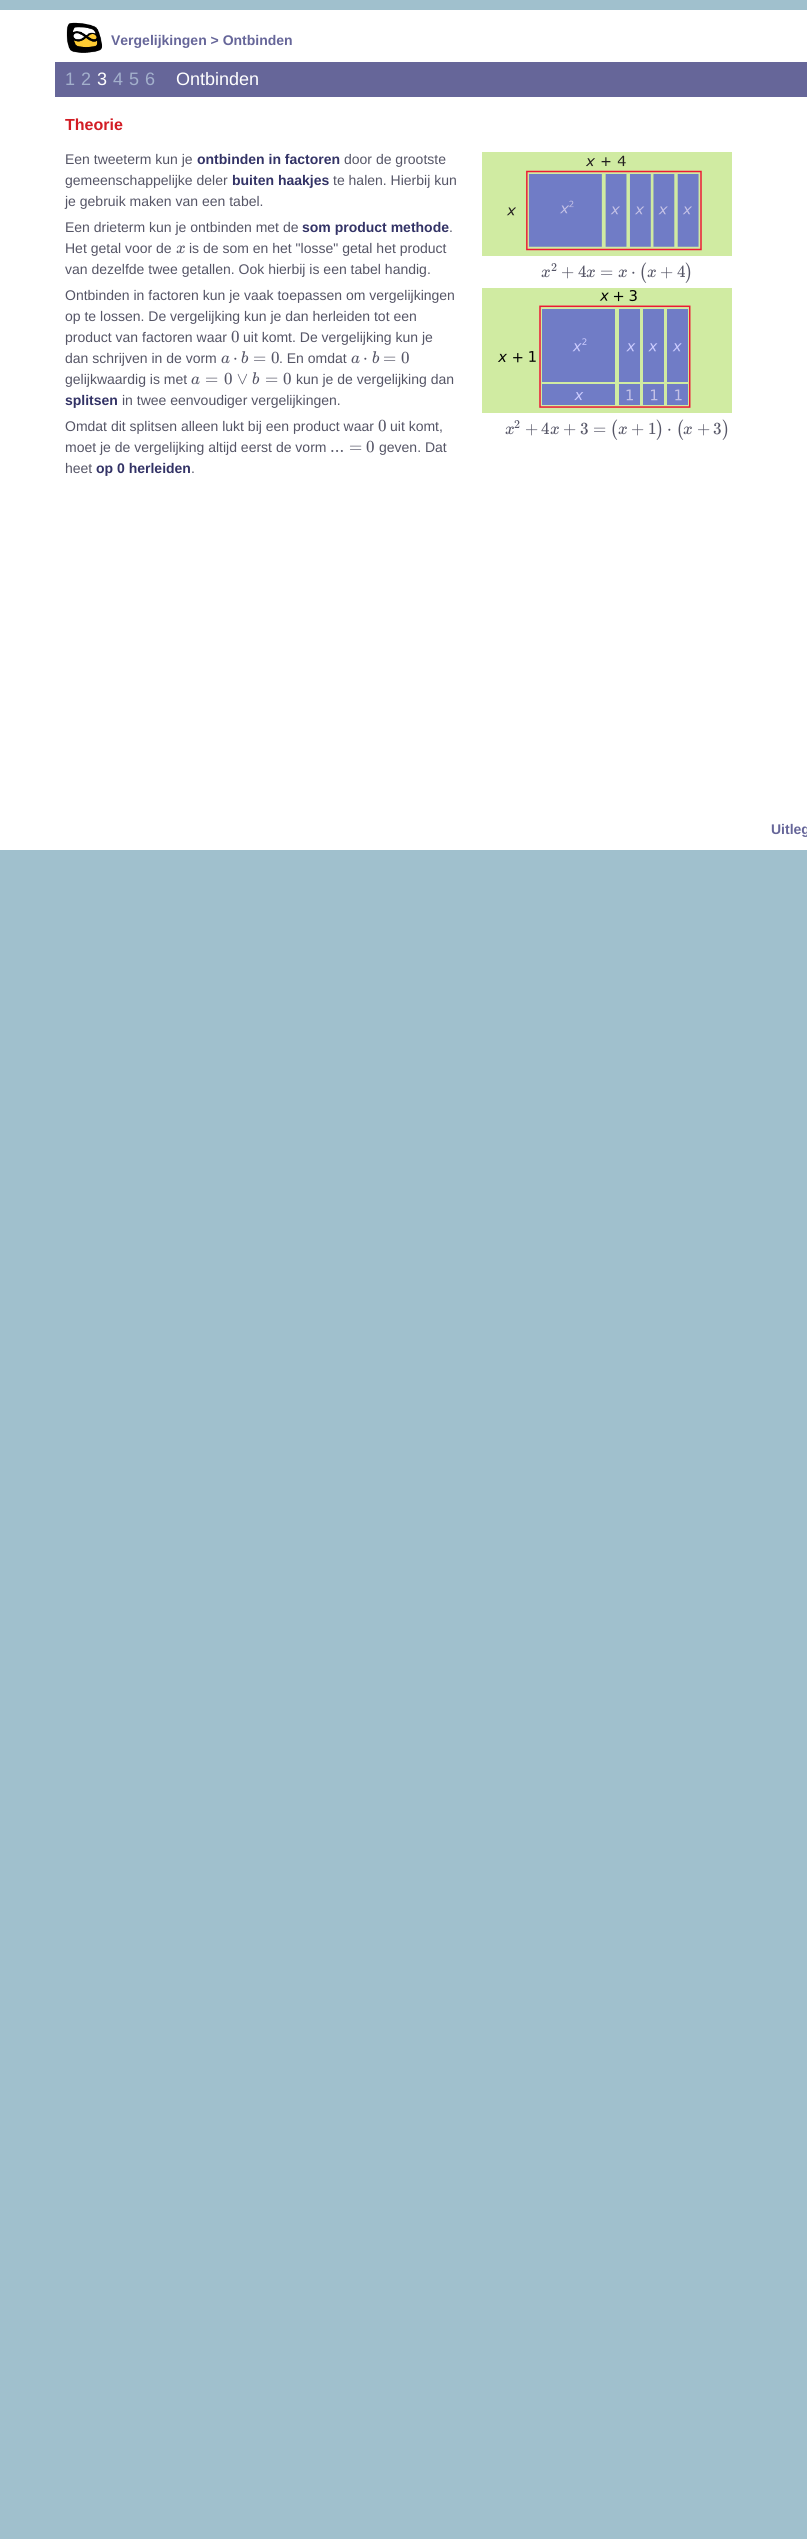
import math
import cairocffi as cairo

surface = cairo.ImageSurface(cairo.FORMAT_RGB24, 807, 2539)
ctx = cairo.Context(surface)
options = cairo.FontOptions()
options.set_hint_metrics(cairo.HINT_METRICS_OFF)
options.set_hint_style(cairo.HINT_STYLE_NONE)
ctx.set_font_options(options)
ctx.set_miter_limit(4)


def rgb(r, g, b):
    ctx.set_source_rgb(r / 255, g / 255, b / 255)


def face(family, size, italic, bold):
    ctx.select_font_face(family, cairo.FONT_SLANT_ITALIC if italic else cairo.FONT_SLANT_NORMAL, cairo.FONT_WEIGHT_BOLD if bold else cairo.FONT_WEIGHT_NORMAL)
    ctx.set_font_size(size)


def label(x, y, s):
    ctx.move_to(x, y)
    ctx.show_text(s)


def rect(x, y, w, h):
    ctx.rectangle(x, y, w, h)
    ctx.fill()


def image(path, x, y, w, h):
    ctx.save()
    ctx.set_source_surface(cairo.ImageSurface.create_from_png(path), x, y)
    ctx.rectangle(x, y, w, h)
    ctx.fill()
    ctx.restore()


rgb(160, 192, 205)
ctx.paint()
rgb(255, 255, 255)
rect(0, 10, 807, 840)
image('image0.png', 66, 22, 37, 31)
face('Liberation Sans', 14, 0, 1)
rgb(102, 102, 153)
label(111, 45, 'Vergelijkingen > Ontbinden')
rect(55, 62, 752, 35)
face('Liberation Sans', 18, 0, 0)
rgb(163, 176, 204)
label(65, 85, '1')
label(81, 85, '2')
rgb(255, 255, 255)
label(97, 85, '3')
rgb(163, 176, 204)
label(113, 85, '4')
label(129, 85, '5')
label(145, 85, '6')
rgb(255, 255, 255)
label(176, 85, 'Ontbinden')
face('Liberation Sans', 16, 0, 1)
rgb(210, 28, 36)
label(65, 130, 'Theorie')
face('Liberation Sans', 14, 0, 0)
rgb(85, 85, 102)
label(65, 164, 'Een tweeterm kun je')
face('Liberation Sans', 14, 0, 1)
rgb(51, 51, 102)
label(197, 164, 'ontbinden in factoren')
face('Liberation Sans', 14, 0, 0)
rgb(85, 85, 102)
label(344, 164, 'door de grootste')
label(65, 185, 'gemeenschappelijke deler')
face('Liberation Sans', 14, 0, 1)
rgb(51, 51, 102)
label(232, 185, 'buiten haakjes')
face('Liberation Sans', 14, 0, 0)
rgb(85, 85, 102)
label(333, 185, 'te halen. Hierbij kun')
label(65, 206, 'je gebruik maken van een tabel.')
label(65, 232, 'Een drieterm kun je ontbinden met de')
face('Liberation Sans', 14, 0, 1)
rgb(51, 51, 102)
label(302, 232, 'som product methode')
face('Liberation Sans', 14, 0, 0)
rgb(85, 85, 102)
label(449, 232, '.')
label(65, 253, 'Het getal voor de')
face('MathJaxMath', 17, 1, 0)
label(176, 253, 'x')
face('Liberation Sans', 14, 0, 0)
label(189, 253, 'is de som en het "losse" getal het product')
label(65, 274, 'van dezelfde twee getallen. Ook hierbij is een tabel handig.')
label(65, 300, 'Ontbinden in factoren kun je vaak toepassen om vergelijkingen')
label(65, 321, 'op te lossen. De vergelijking kun je dan herleiden tot een')
label(65, 342, 'product van factoren waar')
face('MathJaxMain', 17, 0, 0)
label(231, 342, '0')
face('Liberation Sans', 14, 0, 0)
label(243, 342, 'uit komt. De vergelijking kun je')
label(65, 363, 'dan schrijven in de vorm')
face('MathJaxMath', 17, 1, 0)
label(221, 363, 'a')
face('MathJaxMain', 17, 0, 0)
label(233, 363, '⋅')
face('MathJaxMath', 17, 1, 0)
label(241, 363, 'b')
face('MathJaxMain', 17, 0, 0)
label(253, 363, '=')
label(271, 363, '0')
face('Liberation Sans', 14, 0, 0)
label(279, 363, '. En omdat')
face('MathJaxMath', 17, 1, 0)
label(351, 363, 'a')
face('MathJaxMain', 17, 0, 0)
label(363, 363, '⋅')
face('MathJaxMath', 17, 1, 0)
label(372, 363, 'b')
face('MathJaxMain', 17, 0, 0)
label(383, 363, '=')
label(401, 363, '0')
face('Liberation Sans', 14, 0, 0)
label(65, 384, 'gelijkwaardig is met')
face('MathJaxMath', 17, 1, 0)
label(191, 384, 'a')
face('MathJaxMain', 17, 0, 0)
label(205, 384, '=')
label(224, 384, '0 ∨')
face('MathJaxMath', 17, 1, 0)
label(252, 384, 'b')
face('MathJaxMain', 17, 0, 0)
label(265, 384, '=')
label(283, 384, '0')
face('Liberation Sans', 14, 0, 0)
label(296, 384, 'kun je de vergelijking dan')
face('Liberation Sans', 14, 0, 1)
rgb(51, 51, 102)
label(65, 405, 'splitsen')
face('Liberation Sans', 14, 0, 0)
rgb(85, 85, 102)
label(122, 405, 'in twee eenvoudiger vergelijkingen.')
image('image1.png', 482, 152, 250, 104)
face('MathJaxMain', 12, 0, 0)
label(551, 271, '2')
face('MathJaxMath', 17, 1, 0)
label(541, 277, 'x')
face('MathJaxMain', 17, 0, 0)
label(561, 277, '+')
label(578, 277, '4')
face('MathJaxMath', 17, 1, 0)
label(586, 277, 'x')
face('MathJaxMain', 17, 0, 0)
label(600, 277, '=')
face('MathJaxMath', 17, 1, 0)
label(618, 277, 'x')
face('MathJaxMain', 17, 0, 0)
label(631, 277, '⋅')
face('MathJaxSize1', 17, 0, 0)
label(639, 277, '(')
face('MathJaxMath', 17, 1, 0)
label(647, 277, 'x')
face('MathJaxMain', 17, 0, 0)
label(660, 277, '+')
label(677, 277, '4')
face('MathJaxSize1', 17, 0, 0)
label(685, 277, ')')
image('image2.png', 482, 288, 250, 125)
face('MathJaxMain', 12, 0, 0)
label(514, 428, '2')
face('MathJaxMath', 17, 1, 0)
label(505, 434, 'x')
face('MathJaxMain', 17, 0, 0)
label(525, 434, '+')
label(541, 434, '4')
face('MathJaxMath', 17, 1, 0)
label(550, 434, 'x')
face('MathJaxMain', 17, 0, 0)
label(563, 434, '+')
label(580, 434, '3')
label(593, 434, '=')
face('MathJaxSize1', 17, 0, 0)
label(610, 434, '(')
face('MathJaxMath', 17, 1, 0)
label(618, 434, 'x')
face('MathJaxMain', 17, 0, 0)
label(631, 434, '+')
label(648, 434, '1')
face('MathJaxSize1', 17, 0, 0)
label(656, 434, ')')
face('MathJaxMain', 17, 0, 0)
label(667, 434, '⋅')
face('MathJaxSize1', 17, 0, 0)
label(676, 434, '(')
face('MathJaxMath', 17, 1, 0)
label(683, 434, 'x')
face('MathJaxMain', 17, 0, 0)
label(697, 434, '+')
label(713, 434, '3')
face('MathJaxSize1', 17, 0, 0)
label(722, 434, ')')
face('Liberation Sans', 14, 0, 0)
label(65, 431, 'Omdat dit splitsen alleen lukt bij een product waar')
face('MathJaxMain', 17, 0, 0)
label(378, 431, '0')
face('Liberation Sans', 14, 0, 0)
label(390, 431, 'uit komt,')
label(65, 452, 'moet je de vergelijking altijd eerst de vorm')
face('MathJaxMain', 17, 0, 0)
label(349, 452, '=')
label(366, 452, '0')
label(330, 452, '...')
face('Liberation Sans', 14, 0, 0)
label(379, 452, 'geven. Dat')
label(65, 473, 'heet')
face('Liberation Sans', 14, 0, 1)
rgb(51, 51, 102)
label(96, 473, 'op 0 herleiden')
face('Liberation Sans', 14, 0, 0)
rgb(85, 85, 102)
label(191, 473, '.')
face('Liberation Sans', 14, 0, 1)
rgb(102, 102, 153)
label(771, 834, 'Uitleg')
surface.write_to_png('render.png')
